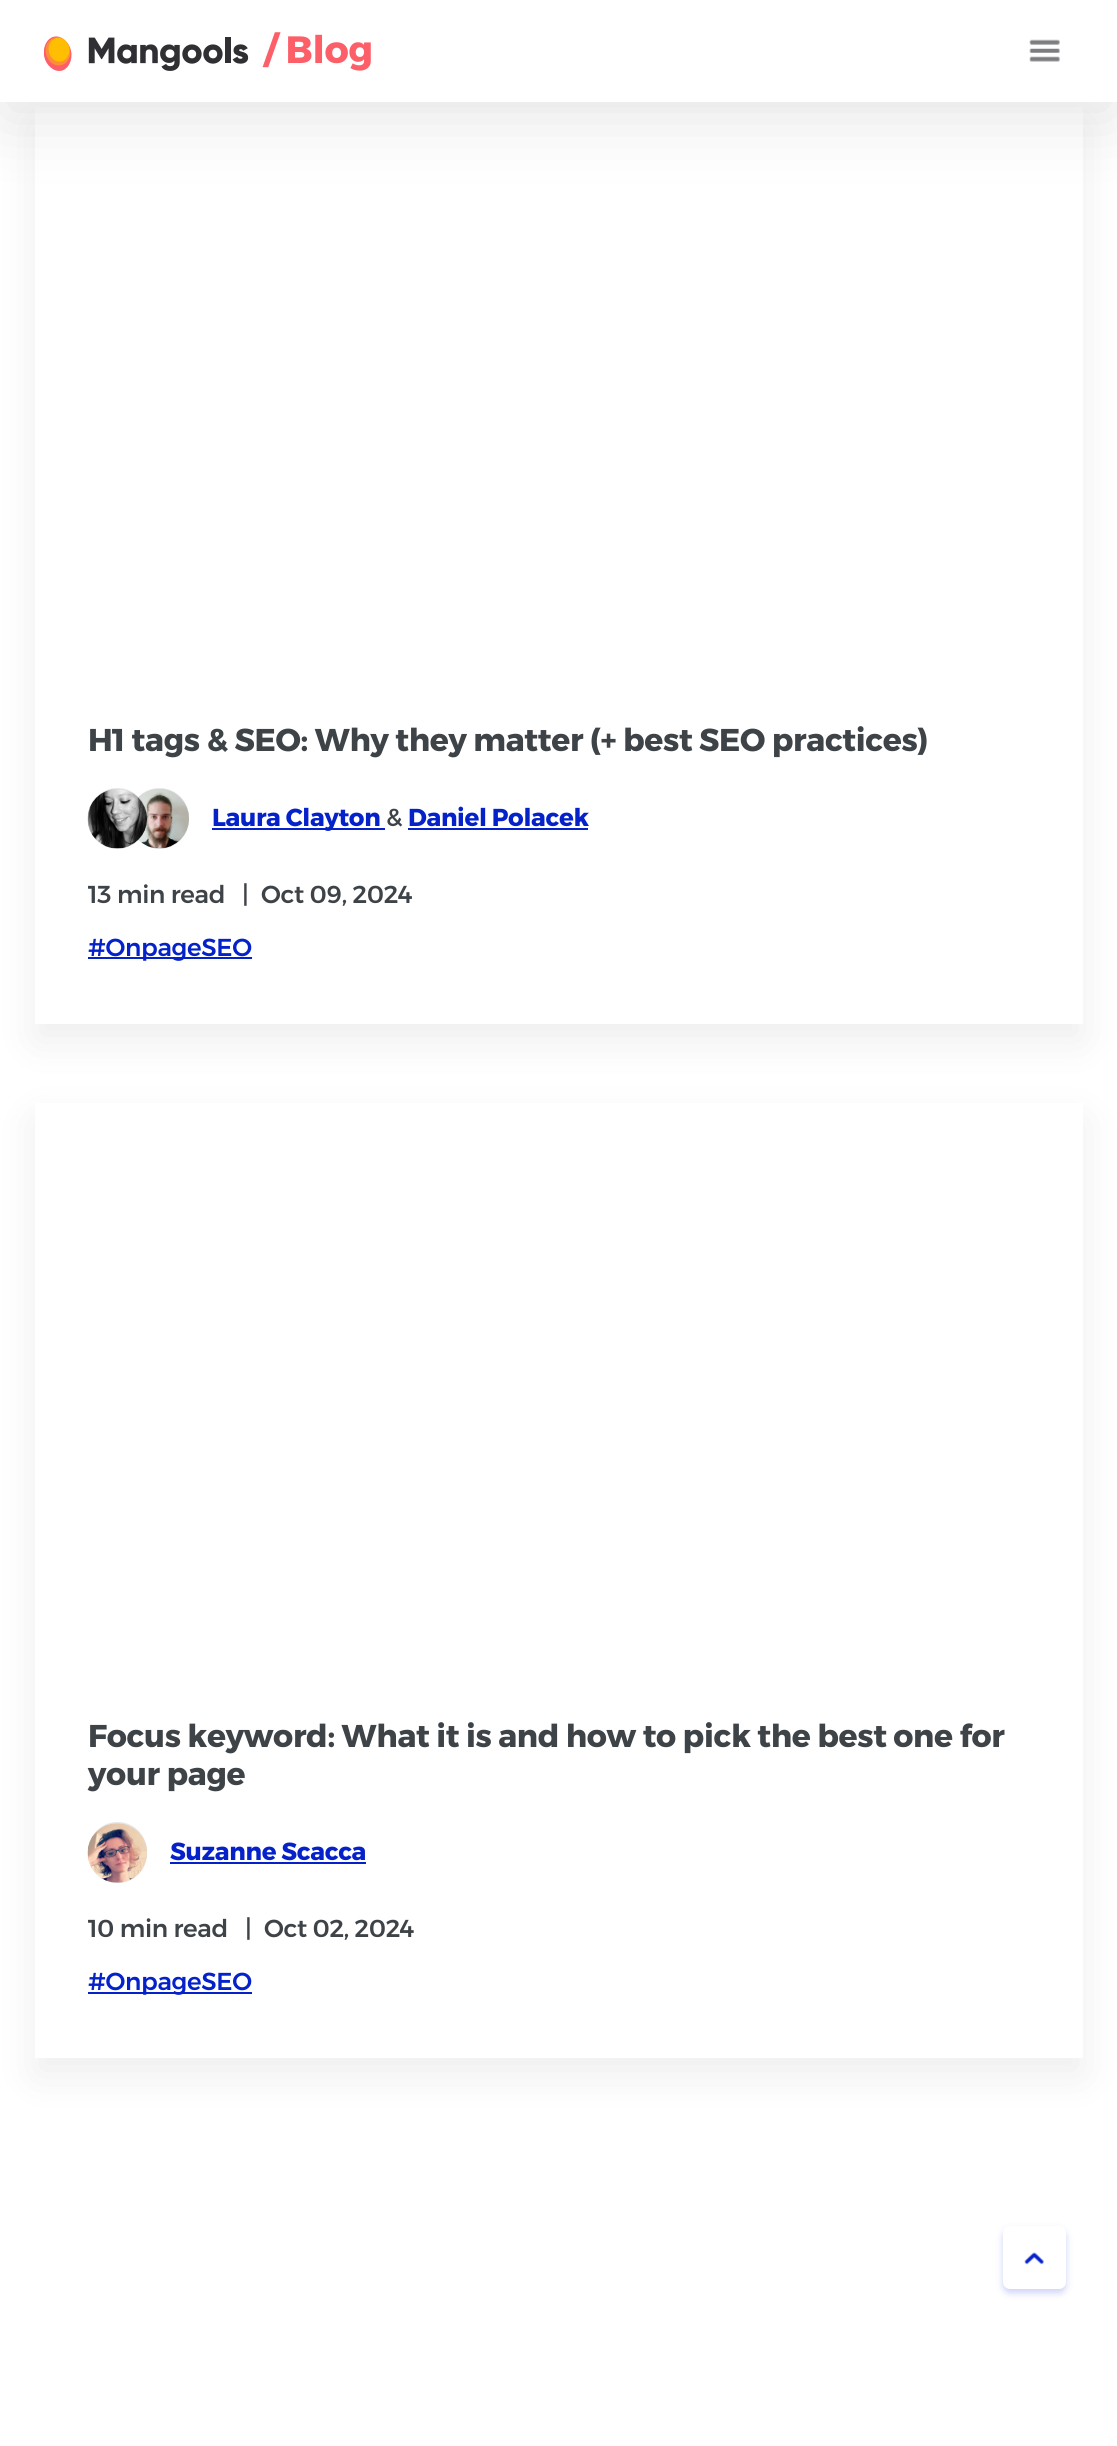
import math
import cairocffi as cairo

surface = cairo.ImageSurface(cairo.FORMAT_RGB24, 1117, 2446)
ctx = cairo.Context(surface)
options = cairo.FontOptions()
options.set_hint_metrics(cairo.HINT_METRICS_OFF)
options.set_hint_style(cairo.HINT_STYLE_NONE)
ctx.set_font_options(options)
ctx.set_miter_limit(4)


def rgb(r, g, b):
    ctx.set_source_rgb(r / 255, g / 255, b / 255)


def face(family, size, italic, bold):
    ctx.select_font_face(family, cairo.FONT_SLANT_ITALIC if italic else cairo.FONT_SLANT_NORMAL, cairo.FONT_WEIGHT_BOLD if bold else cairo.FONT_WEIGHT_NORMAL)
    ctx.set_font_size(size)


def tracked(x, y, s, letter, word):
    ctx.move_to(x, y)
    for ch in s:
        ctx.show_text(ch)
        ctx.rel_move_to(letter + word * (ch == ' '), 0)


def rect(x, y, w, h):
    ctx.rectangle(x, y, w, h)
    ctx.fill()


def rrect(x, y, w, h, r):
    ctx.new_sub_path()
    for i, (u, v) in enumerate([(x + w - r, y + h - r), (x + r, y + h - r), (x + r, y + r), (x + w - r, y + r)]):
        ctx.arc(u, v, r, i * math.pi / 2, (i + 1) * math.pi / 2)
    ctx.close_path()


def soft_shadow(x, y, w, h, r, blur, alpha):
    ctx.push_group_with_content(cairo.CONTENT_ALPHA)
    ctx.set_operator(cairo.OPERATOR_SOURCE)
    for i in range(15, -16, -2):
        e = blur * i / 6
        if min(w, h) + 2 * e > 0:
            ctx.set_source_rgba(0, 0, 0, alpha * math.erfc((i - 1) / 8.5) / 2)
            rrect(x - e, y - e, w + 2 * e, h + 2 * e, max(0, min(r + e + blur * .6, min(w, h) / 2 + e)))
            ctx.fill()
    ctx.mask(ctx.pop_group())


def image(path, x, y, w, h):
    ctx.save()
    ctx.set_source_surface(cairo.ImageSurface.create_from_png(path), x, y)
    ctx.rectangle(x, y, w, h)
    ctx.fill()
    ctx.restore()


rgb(255, 255, 255)
ctx.paint()
rgb(0, 0, 0)
soft_shadow(35, 124, 1048, 917, 0, 22, 0.07)
rgb(255, 255, 255)
rect(35, 107, 1048, 917)
rgb(0, 0, 0)
soft_shadow(0, 18, 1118, 101, 0, 35, 0.1)
rgb(255, 255, 255)
rect(0, 0, 1117, 102)
image('image0.png', 44, 36, 205, 35)
face('Montserrat', 38, 0, 1)
rgb(253, 95, 105)
tracked(264, 63, '/ Blog', -0.25, 0)
image('image1.png', 1029, 39, 31, 23)
face('Montserrat', 31.5, 0, 1)
rgb(62, 67, 72)
tracked(88, 751, 'H1 tags & SEO: Why they matter (+ best SEO practices)', -0.3, 0)
rgb(230, 230, 230)
ctx.new_path()
ctx.arc(159.5, 817.5, 29.5, 0, 2 * math.pi)
ctx.fill()
ctx.set_source_rgba(0, 0, 0, 0.1)
rrect(130, 789, 59, 60, 29.5)
ctx.fill()
image('image3.png', 138, 789, 51, 60)
ctx.arc(117.5, 817.5, 29.5, 0, 2 * math.pi)
ctx.fill()
rrect(88, 789, 59, 60, 29.5)
ctx.fill()
image('image2.png', 87, 789, 60, 60)
rgb(5, 33, 202)
rect(212, 828, 173, 2)
face('Montserrat', 24.5, 0, 1)
tracked(212, 826, 'Laura Clayton', -0.3, 0)
face('Montserrat Medium', 24.5, 0, 0)
rgb(62, 67, 72)
tracked(386, 826, '&', -0.3, 0)
face('Montserrat', 24.5, 0, 1)
rgb(5, 33, 202)
tracked(408, 826, 'Daniel Polacek', -0.3, 0)
rect(408, 828, 180, 2)
face('Montserrat Medium', 24.5, 0, 0)
rgb(62, 67, 72)
tracked(88, 903, '13 min read', -0.3, 0)
tracked(242, 903, '|', -0.3, 0)
tracked(261, 903, 'Oct 09, 2024', -0.3, 0)
rgb(5, 33, 202)
rect(88, 957, 164, 2)
tracked(88, 956, '#OnpageSEO', -0.3, 0)
ctx.save()
ctx.set_fill_rule(cairo.FILL_RULE_EVEN_ODD)
ctx.new_path()
ctx.move_to(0, 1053)
ctx.line_to(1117, 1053)
ctx.line_to(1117, 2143)
ctx.line_to(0, 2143)
ctx.close_path()
ctx.move_to(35, 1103)
ctx.line_to(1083, 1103)
ctx.line_to(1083, 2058)
ctx.line_to(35, 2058)
ctx.close_path()
ctx.clip()
rgb(0, 0, 0)
soft_shadow(35, 1120, 1048, 956, 0, 22, 0.07)
ctx.restore()
face('Montserrat', 31.5, 0, 1)
rgb(62, 67, 72)
tracked(88, 1747, 'Focus keyword: What it is and how to pick the best one for', -0.3, 0)
tracked(88, 1785, 'your page', -0.3, 0)
rgb(230, 230, 230)
ctx.new_path()
ctx.arc(117.5, 1851.5, 29.5, 0, 2 * math.pi)
ctx.fill()
ctx.set_source_rgba(0, 0, 0, 0.1)
ctx.arc(117.5, 1853.5, 29.5, 0, 2 * math.pi)
ctx.fill()
image('image4.png', 87, 1823, 60, 60)
face('Montserrat', 24.5, 0, 1)
rgb(5, 33, 202)
tracked(170, 1860, 'Suzanne Scacca', -0.3, 0)
rect(170, 1862, 196, 2)
face('Montserrat Medium', 24.5, 0, 0)
rgb(62, 67, 72)
tracked(88, 1937, '10 min read', -0.3, 0)
tracked(245, 1937, '|', -0.3, 0)
tracked(264, 1937, 'Oct 02, 2024', -0.3, 0)
rgb(5, 33, 202)
rect(88, 1992, 164, 2)
tracked(88, 1990, '#OnpageSEO', -0.3, 0)
rgb(5, 33, 202)
soft_shadow(1003, 2230, 63, 63, 7, 3.5, 0.2)
rgb(255, 255, 255)
rrect(1003, 2226, 63, 63, 7)
ctx.fill()
image('image5.png', 1024, 2252, 20, 13)
surface.write_to_png('render.png')
